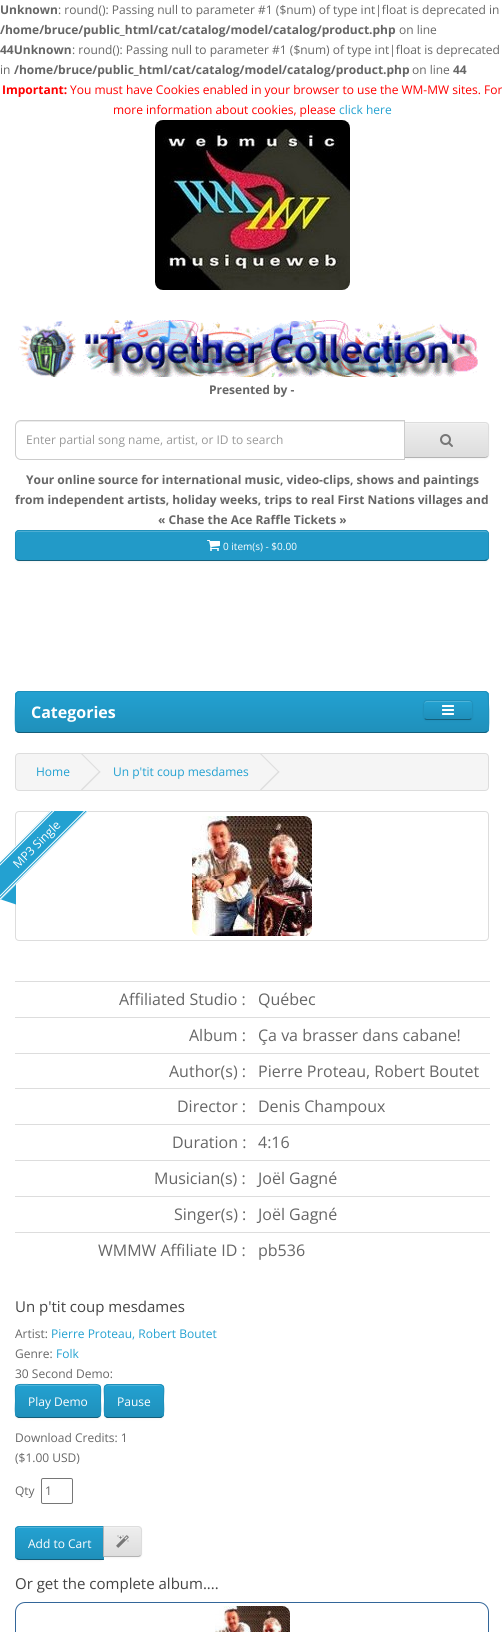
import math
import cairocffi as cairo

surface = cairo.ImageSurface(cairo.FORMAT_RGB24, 504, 1632)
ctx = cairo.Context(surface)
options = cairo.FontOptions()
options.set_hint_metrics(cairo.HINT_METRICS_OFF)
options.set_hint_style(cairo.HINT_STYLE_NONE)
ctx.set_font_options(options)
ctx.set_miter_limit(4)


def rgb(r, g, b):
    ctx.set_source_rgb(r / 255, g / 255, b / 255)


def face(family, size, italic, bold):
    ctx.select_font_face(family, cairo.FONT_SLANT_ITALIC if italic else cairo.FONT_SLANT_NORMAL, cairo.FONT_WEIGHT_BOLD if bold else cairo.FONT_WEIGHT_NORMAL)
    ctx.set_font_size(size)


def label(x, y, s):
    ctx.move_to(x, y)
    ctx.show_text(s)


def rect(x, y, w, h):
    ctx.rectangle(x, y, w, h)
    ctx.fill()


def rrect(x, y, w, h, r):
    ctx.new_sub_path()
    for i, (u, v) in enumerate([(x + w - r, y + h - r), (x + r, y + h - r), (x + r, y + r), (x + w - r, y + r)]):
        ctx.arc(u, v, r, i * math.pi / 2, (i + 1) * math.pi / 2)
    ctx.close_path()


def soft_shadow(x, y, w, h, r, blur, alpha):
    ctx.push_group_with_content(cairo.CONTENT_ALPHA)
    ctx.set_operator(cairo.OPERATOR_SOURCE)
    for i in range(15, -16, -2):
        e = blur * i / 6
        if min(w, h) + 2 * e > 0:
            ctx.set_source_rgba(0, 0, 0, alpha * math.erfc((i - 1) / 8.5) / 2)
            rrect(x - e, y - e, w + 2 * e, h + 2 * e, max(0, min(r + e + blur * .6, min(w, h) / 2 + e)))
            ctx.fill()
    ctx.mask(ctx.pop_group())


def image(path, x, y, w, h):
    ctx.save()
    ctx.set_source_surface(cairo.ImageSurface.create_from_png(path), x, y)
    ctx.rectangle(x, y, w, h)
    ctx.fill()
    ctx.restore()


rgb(255, 255, 255)
ctx.paint()
face('Open Sans', 12, 0, 1)
rgb(102, 102, 102)
label(0, 14, 'Unknown')
face('Open Sans', 12, 0, 0)
label(58, 14, ': round(): Passing null to parameter #1 ($num) of type int|float is deprecated in')
face('Open Sans', 12, 0, 1)
label(0, 34, '/home/bruce/public_html/cat/catalog/model/catalog/product.php')
face('Open Sans', 12, 0, 0)
label(399, 34, 'on line')
face('Open Sans', 12, 0, 1)
label(0, 54, '44Unknown')
face('Open Sans', 12, 0, 0)
label(72, 54, ': round(): Passing null to parameter #1 ($num) of type int|float is deprecated')
label(0, 74, 'in')
face('Open Sans', 12, 0, 1)
label(14, 74, '/home/bruce/public_html/cat/catalog/model/catalog/product.php')
face('Open Sans', 12, 0, 0)
label(412, 74, 'on line')
face('Open Sans', 12, 0, 1)
label(453, 74, '44')
rgb(255, 0, 0)
label(2, 94, 'Important:')
face('Open Sans', 12, 0, 0)
label(70, 94, 'You must have Cookies enabled in your browser to use the WM-MW sites. For')
label(113, 114, 'more information about cookies, please')
rgb(35, 161, 209)
label(339, 114, 'click here')
image('image0.png', 155, 120, 195, 170)
image('image1.png', 18, 320, 460, 57)
face('Open Sans', 12, 0, 1)
rgb(102, 102, 102)
label(209, 394, 'Presented by -')
rgb(0, 0, 0)
soft_shadow(404, 423, 85, 36, 4, 1, 0.05)
rgb(231, 231, 231)
ctx.new_path()
ctx.move_to(404, 422)
ctx.line_to(485, 422)
ctx.curve_to(487, 422, 489, 424, 489, 426)
ctx.line_to(489, 454)
ctx.curve_to(489, 456, 487, 458, 485, 458)
ctx.line_to(404, 458)
ctx.close_path()
ctx.fill()
ctx.save()
ctx.new_path()
ctx.move_to(404, 422)
ctx.line_to(485, 422)
ctx.curve_to(487, 422, 489, 424, 489, 426)
ctx.line_to(489, 454)
ctx.curve_to(489, 456, 487, 458, 485, 458)
ctx.line_to(404, 458)
ctx.close_path()
ctx.clip()
gradient = cairo.LinearGradient(447, 423, 447, 457)
gradient.add_color_stop_rgba(0, 0.933, 0.933, 0.933, 1)
gradient.add_color_stop_rgba(1, 0.867, 0.867, 0.867, 1)
ctx.set_source(gradient)
rect(405, 423, 84, 34)
ctx.restore()
rgb(241, 241, 241)
ctx.new_path()
ctx.move_to(405, 424)
ctx.line_to(485, 424)
ctx.curve_to(487, 424, 488, 425, 488, 427)
ctx.line_to(488, 426)
ctx.curve_to(488, 424, 487, 423, 485, 423)
ctx.line_to(405, 423)
ctx.close_path()
ctx.fill()
rgb(221, 221, 221)
ctx.new_path()
ctx.move_to(404, 422)
ctx.line_to(405, 423)
ctx.line_to(486, 423)
ctx.line_to(487, 424)
ctx.line_to(488, 423)
ctx.line_to(485, 422)
ctx.close_path()
ctx.fill()
ctx.new_path()
ctx.move_to(489, 454)
ctx.line_to(489, 426)
ctx.curve_to(489, 425, 488.5, 424, 488, 423)
ctx.line_to(487, 424)
ctx.curve_to(488, 424, 488, 425, 488, 426)
ctx.line_to(488, 454)
ctx.curve_to(488, 455, 488, 456, 487, 456)
ctx.line_to(488, 457)
ctx.curve_to(488.5, 456, 489, 455, 489, 454)
ctx.close_path()
ctx.fill()
rgb(179, 179, 179)
ctx.new_path()
ctx.move_to(485, 458)
ctx.line_to(488, 457)
ctx.line_to(487, 456)
ctx.line_to(486, 457)
ctx.line_to(405, 457)
ctx.line_to(404, 458)
ctx.close_path()
ctx.fill()
rgb(255, 255, 255)
ctx.new_path()
ctx.move_to(21, 420)
ctx.line_to(405, 420)
ctx.line_to(405, 460)
ctx.line_to(21, 460)
ctx.curve_to(17.5, 460, 15, 457.5, 15, 454)
ctx.line_to(15, 426)
ctx.curve_to(15, 422.5, 17.5, 420, 21, 420)
ctx.close_path()
ctx.fill()
rgb(236, 236, 236)
ctx.new_path()
ctx.move_to(21, 422)
ctx.line_to(404, 422)
ctx.line_to(404, 421)
ctx.line_to(21, 421)
ctx.curve_to(18, 421, 16, 424, 16, 427)
ctx.curve_to(16, 424, 18, 422, 21, 422)
ctx.close_path()
ctx.fill()
ctx.new_path()
ctx.move_to(21, 420.5)
ctx.line_to(404.5, 420.5)
ctx.line_to(404.5, 459.5)
ctx.line_to(21, 459.5)
ctx.curve_to(18, 459.5, 15.5, 457, 15.5, 454)
ctx.line_to(15.5, 426)
ctx.curve_to(15.5, 423, 18, 420.5, 21, 420.5)
ctx.close_path()
rgb(204, 204, 204)
ctx.set_line_width(1)
ctx.stroke()
face('Open Sans', 12, 0, 0)
rgb(153, 153, 153)
label(26, 444, 'Enter partial song name, artist, or ID to search')
image('image2.png', 440, 434, 13, 13)
face('Open Sans', 12, 0, 1)
rgb(102, 102, 102)
label(26, 484, 'Your online source for international music, video-clips, shows and paintings')
label(15, 504, 'from independent artists, holiday weeks, trips to real First Nations villages and')
label(158, 524, '« Chase the Ace Raffle Tickets »')
rgb(0, 0, 0)
soft_shadow(15, 531, 474, 31, 4, 1, 0.05)
rgb(34, 154, 200)
rrect(15, 530, 474, 31, 4)
ctx.fill()
rgb(78, 174, 211)
ctx.new_path()
ctx.move_to(19, 532)
ctx.line_to(485, 532)
ctx.curve_to(487, 532, 488, 533, 488, 535)
ctx.curve_to(488, 533, 488, 531, 486, 531)
ctx.line_to(18, 531)
ctx.line_to(16, 533)
ctx.line_to(16, 535)
ctx.curve_to(16, 533, 17, 532, 19, 532)
ctx.close_path()
ctx.fill()
ctx.new_path()
ctx.move_to(487.5, 559.5)
ctx.line_to(485, 560.5)
ctx.line_to(19, 560.5)
ctx.line_to(16.5, 559.5)
rgb(20, 94, 122)
ctx.stroke()
ctx.new_path()
ctx.move_to(16.5, 559.5)
ctx.curve_to(16, 559, 15.5, 558, 15.5, 557)
ctx.line_to(15.5, 534)
ctx.curve_to(15.5, 533, 16, 532, 16.5, 531.5)
ctx.curve_to(17, 531, 18, 530.5, 19, 530.5)
ctx.line_to(485, 530.5)
ctx.curve_to(486, 530.5, 487, 531, 487.5, 531.5)
ctx.curve_to(488, 532, 488.5, 533, 488.5, 534)
ctx.line_to(488.5, 557)
ctx.curve_to(488.5, 558, 488, 559, 487.5, 559.5)
rgb(31, 144, 187)
ctx.stroke()
image('image3.png', 207, 540, 13, 11)
face('Open Sans', 10, 0, 0)
rgb(255, 255, 255)
label(223, 550, '0 item(s) - $0.00')
rgb(34, 154, 200)
rrect(15, 691, 474, 42, 4)
ctx.fill()
ctx.save()
rrect(15, 691, 474, 42, 4)
ctx.clip()
gradient = cairo.LinearGradient(252, 692, 252, 732)
gradient.add_color_stop_rgba(0, 0.137, 0.631, 0.82, 1)
gradient.add_color_stop_rgba(1, 0.122, 0.565, 0.733, 1)
ctx.set_source(gradient)
rect(15, 692, 474, 40)
ctx.restore()
ctx.new_path()
ctx.move_to(487.5, 731.5)
ctx.line_to(485, 732.5)
ctx.line_to(19, 732.5)
ctx.line_to(16.5, 731.5)
rgb(20, 94, 122)
ctx.stroke()
ctx.new_path()
ctx.move_to(16.5, 731.5)
ctx.line_to(15.5, 729.5)
ctx.curve_to(15, 727, 15, 694.5, 16.5, 693)
ctx.line_to(18.5, 691.5)
ctx.line_to(252, 691.5)
ctx.line_to(485.5, 691.5)
ctx.line_to(487.5, 693)
ctx.curve_to(489, 694.5, 489, 727, 488.5, 729.5)
ctx.line_to(487.5, 731.5)
rgb(31, 144, 187)
ctx.stroke()
face('Open Sans', 16, 0, 1)
rgb(255, 255, 255)
label(31, 718, 'Categories')
rgb(0, 0, 0)
soft_shadow(423, 701, 50, 20, 4, 1, 0.05)
ctx.save()
rrect(423, 700, 50, 20, 4)
ctx.clip()
gradient = cairo.LinearGradient(448, 701, 448, 719)
gradient.add_color_stop_rgba(0, 0.137, 0.631, 0.82, 1)
gradient.add_color_stop_rgba(1, 0.122, 0.565, 0.733, 1)
ctx.set_source(gradient)
rect(423, 701, 50, 18)
ctx.restore()
rgb(79, 180, 217)
ctx.new_path()
ctx.move_to(427, 702)
ctx.line_to(470, 702)
ctx.curve_to(471, 702, 472, 703, 472, 704)
ctx.curve_to(472, 699, 465, 701, 462, 701)
ctx.line_to(434, 701)
ctx.curve_to(429, 701, 424, 699, 424, 705)
ctx.curve_to(424, 704, 425, 702, 427, 702)
ctx.close_path()
ctx.fill()
ctx.new_path()
ctx.move_to(471.5, 718.5)
ctx.curve_to(471, 719, 470, 719.5, 469, 719.5)
ctx.line_to(427, 719.5)
ctx.curve_to(426, 719.5, 425, 719, 424.5, 718.5)
rgb(20, 94, 122)
ctx.stroke()
ctx.new_path()
ctx.move_to(424.5, 718.5)
ctx.curve_to(422.5, 716.5, 423.5, 710.5, 423.5, 708)
ctx.curve_to(423.5, 699, 425, 700.5, 434, 700.5)
ctx.line_to(462, 700.5)
ctx.curve_to(473, 700.5, 472.5, 699.5, 472.5, 710)
ctx.curve_to(472.5, 712.5, 473.5, 716.5, 471.5, 718.5)
rgb(31, 144, 187)
ctx.stroke()
image('image4.png', 442, 705, 12, 10)
rgb(245, 245, 245)
rrect(15.5, 753.5, 473, 37, 3.5)
ctx.fill_preserve()
rgb(221, 221, 221)
ctx.stroke()
face('Open Sans', 12, 0, 0)
rgb(35, 161, 209)
label(36, 776, 'Home')
rgb(221, 221, 221)
ctx.new_path()
ctx.move_to(81, 754)
ctx.line_to(82, 753.5)
ctx.line_to(100.5, 772)
ctx.line_to(99.5, 772.5)
ctx.close_path()
ctx.fill()
ctx.new_path()
ctx.move_to(81, 789.5)
ctx.line_to(99.5, 771)
ctx.line_to(100.5, 772)
ctx.line_to(82, 790.5)
ctx.close_path()
ctx.fill()
rgb(35, 161, 209)
label(113, 776, 'Un p\'tit coup mesdames')
rgb(221, 221, 221)
ctx.new_path()
ctx.move_to(260, 754)
ctx.line_to(261, 753.5)
ctx.line_to(279.5, 772)
ctx.line_to(278.5, 772.5)
ctx.close_path()
ctx.fill()
ctx.new_path()
ctx.move_to(260, 789.5)
ctx.line_to(278.5, 771)
ctx.line_to(279.5, 772)
ctx.line_to(261, 790.5)
ctx.close_path()
ctx.fill()
rrect(15.5, 811.5, 473, 129, 3.5)
ctx.stroke()
ctx.save()
ctx.rectangle(0, 811, 504, 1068)
ctx.clip()
rgb(35, 161, 209)
ctx.new_path()
ctx.move_to(-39, 901)
ctx.line_to(102, 759)
ctx.line_to(121, 778)
ctx.line_to(-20, 920)
ctx.close_path()
ctx.fill()
ctx.new_path()
ctx.move_to(-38.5, 900.5)
ctx.line_to(102, 760)
ctx.line_to(120.5, 778)
ctx.line_to(-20, 919)
ctx.close_path()
rgb(255, 255, 255)
ctx.stroke()
ctx.new_path()
ctx.move_to(-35.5, 900.5)
ctx.line_to(102, 762.5)
ctx.line_to(117.5, 778)
ctx.line_to(-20, 916)
ctx.close_path()
ctx.stroke()
ctx.restore()
rgb(255, 255, 255)
ctx.save()
ctx.translate(18, 869)
ctx.rotate(-45 * math.pi / 180)
label(0, 0, 'MP3 Single')
ctx.restore()
rgb(35, 161, 209)
ctx.new_path()
ctx.move_to(16, 884.5)
ctx.line_to(16, 904.5)
ctx.line_to(1, 899.5)
ctx.close_path()
ctx.fill()
image('image5.png', 192, 816, 120, 120)
face('Open Sans', 16, 0, 0)
rgb(102, 102, 102)
label(119, 1005, 'Affiliated Studio :')
rgb(221, 221, 221)
rect(15, 981, 475, 1)
rgb(102, 102, 102)
label(258, 1005, 'Québec')
label(189, 1041, 'Album :')
rgb(221, 221, 221)
rect(15, 1017, 475, 1)
rgb(102, 102, 102)
label(258, 1041, 'Ça va brasser dans cabane!')
label(169, 1077, 'Author(s) :')
rgb(221, 221, 221)
rect(15, 1053, 475, 1)
rgb(102, 102, 102)
label(258, 1077, 'Pierre Proteau, Robert Boutet')
label(177, 1112, 'Director :')
rgb(221, 221, 221)
rect(15, 1088, 475, 1)
rgb(102, 102, 102)
label(258, 1112, 'Denis Champoux')
label(172, 1148, 'Duration :')
rgb(221, 221, 221)
rect(15, 1124, 475, 1)
rgb(102, 102, 102)
label(258, 1148, '4:16')
label(154, 1184, 'Musician(s) :')
rgb(221, 221, 221)
rect(15, 1160, 475, 1)
rgb(102, 102, 102)
label(258, 1184, 'Joël Gagné')
label(174, 1220, 'Singer(s) :')
rgb(221, 221, 221)
rect(15, 1196, 475, 1)
rgb(102, 102, 102)
label(258, 1220, 'Joël Gagné')
label(98, 1256, 'WMMW Affiliate ID :')
rgb(221, 221, 221)
rect(15, 1232, 475, 1)
rgb(102, 102, 102)
label(258, 1256, 'pb536')
face('Open Sans', 15, 0, 0)
rgb(68, 68, 68)
label(15, 1312, 'Un p\'tit coup mesdames')
face('Open Sans', 12, 0, 0)
rgb(102, 102, 102)
label(15, 1338, 'Artist:')
rgb(35, 161, 209)
label(51, 1338, 'Pierre Proteau, Robert Boutet')
rgb(102, 102, 102)
label(15, 1358, 'Genre:')
rgb(35, 161, 209)
label(56, 1358, 'Folk')
rgb(102, 102, 102)
label(15, 1378, '30 Second Demo:')
rgb(0, 0, 0)
soft_shadow(15, 1385, 86, 34, 4, 1, 0.05)
ctx.save()
rrect(15, 1384, 86, 34, 4)
ctx.clip()
gradient = cairo.LinearGradient(58, 1385, 58, 1417)
gradient.add_color_stop_rgba(0, 0.137, 0.631, 0.82, 1)
gradient.add_color_stop_rgba(1, 0.122, 0.565, 0.733, 1)
ctx.set_source(gradient)
rect(15, 1385, 86, 32)
ctx.restore()
ctx.set_source_rgba(1, 1, 1, 0.2)
ctx.new_path()
ctx.move_to(19, 1386)
ctx.line_to(97, 1386)
ctx.curve_to(99, 1386, 100, 1387, 100, 1389)
ctx.curve_to(100, 1382, 88, 1385, 84, 1385)
ctx.line_to(32, 1385)
ctx.curve_to(28, 1385, 16, 1382, 16, 1389)
ctx.curve_to(16, 1387, 17, 1386, 19, 1386)
ctx.close_path()
ctx.fill()
ctx.new_path()
ctx.move_to(99.5, 1416.5)
ctx.line_to(97.5, 1417.5)
ctx.line_to(18.5, 1417.5)
ctx.line_to(16.5, 1416.5)
rgb(20, 94, 122)
ctx.stroke()
ctx.new_path()
ctx.move_to(16.5, 1416.5)
ctx.curve_to(14.5, 1414, 15.5, 1404, 15.5, 1401)
ctx.curve_to(15.5, 1382, 12.5, 1384.5, 32, 1384.5)
ctx.line_to(84, 1384.5)
ctx.curve_to(103.5, 1384.5, 100.5, 1382, 100.5, 1401)
ctx.curve_to(100.5, 1404, 101.5, 1414, 99.5, 1416.5)
rgb(31, 144, 187)
ctx.stroke()
rgb(255, 255, 255)
label(28, 1406, 'Play Demo')
rgb(0, 0, 0)
soft_shadow(104, 1385, 60, 34, 4, 1, 0.05)
rgb(34, 154, 200)
rrect(104, 1384, 60, 34, 4)
ctx.fill()
ctx.save()
rrect(104, 1384, 60, 34, 4)
ctx.clip()
gradient = cairo.LinearGradient(134, 1385, 134, 1417)
gradient.add_color_stop_rgba(0, 0.137, 0.631, 0.82, 1)
gradient.add_color_stop_rgba(1, 0.122, 0.565, 0.733, 1)
ctx.set_source(gradient)
rect(104, 1385, 60, 32)
ctx.restore()
rgb(79, 180, 218)
ctx.new_path()
ctx.move_to(108, 1386)
ctx.line_to(160, 1386)
ctx.curve_to(162, 1386, 163, 1387, 163, 1389)
ctx.curve_to(163, 1383, 156, 1385, 151, 1385)
ctx.line_to(117, 1385)
ctx.curve_to(112, 1385, 105, 1383, 105, 1389)
ctx.curve_to(105, 1387, 106, 1386, 108, 1386)
ctx.close_path()
ctx.fill()
ctx.new_path()
ctx.move_to(162.5, 1416.5)
ctx.line_to(160.5, 1417.5)
ctx.line_to(107.5, 1417.5)
ctx.line_to(105.5, 1416.5)
rgb(20, 94, 122)
ctx.stroke()
ctx.new_path()
ctx.move_to(105.5, 1416.5)
ctx.curve_to(103.5, 1414, 104.5, 1404, 104.5, 1401)
ctx.curve_to(104.5, 1384.5, 101, 1384.5, 116.5, 1384.5)
ctx.line_to(151.5, 1384.5)
ctx.curve_to(167, 1384.5, 163.5, 1384.5, 163.5, 1401)
ctx.curve_to(163.5, 1404, 164.5, 1414, 162.5, 1416.5)
rgb(31, 144, 187)
ctx.stroke()
rgb(255, 255, 255)
label(117, 1406, 'Pause')
rgb(102, 102, 102)
label(15, 1442, 'Download Credits: 1')
label(15, 1462, '($1.00 USD)')
label(15, 1495, 'Qty')
rrect(41.5, 1478.5, 31, 25, 1.5)
rgb(118, 118, 118)
ctx.stroke()
rgb(102, 102, 102)
label(45, 1495, '1')
rgb(0, 0, 0)
soft_shadow(15, 1527, 89, 34, 4, 1, 0.05)
rgb(34, 154, 200)
ctx.new_path()
ctx.move_to(19, 1526)
ctx.line_to(104, 1526)
ctx.line_to(104, 1560)
ctx.line_to(19, 1560)
ctx.curve_to(17, 1560, 15, 1558, 15, 1556)
ctx.line_to(15, 1530)
ctx.curve_to(15, 1528, 17, 1526, 19, 1526)
ctx.close_path()
ctx.fill()
ctx.save()
ctx.new_path()
ctx.move_to(19, 1526)
ctx.line_to(104, 1526)
ctx.line_to(104, 1560)
ctx.line_to(19, 1560)
ctx.curve_to(17, 1560, 15, 1558, 15, 1556)
ctx.line_to(15, 1530)
ctx.curve_to(15, 1528, 17, 1526, 19, 1526)
ctx.close_path()
ctx.clip()
gradient = cairo.LinearGradient(60, 1527, 60, 1559)
gradient.add_color_stop_rgba(0, 0.137, 0.631, 0.82, 1)
gradient.add_color_stop_rgba(1, 0.122, 0.565, 0.733, 1)
ctx.set_source(gradient)
rect(15, 1527, 88, 32)
ctx.restore()
rgb(79, 180, 218)
ctx.new_path()
ctx.move_to(19, 1528)
ctx.line_to(103, 1528)
ctx.line_to(103, 1527)
ctx.line_to(19, 1527)
ctx.curve_to(17, 1527, 16, 1528, 16, 1530)
ctx.line_to(16, 1531)
ctx.curve_to(16, 1529, 17, 1528, 19, 1528)
ctx.close_path()
ctx.fill()
rgb(31, 144, 187)
ctx.new_path()
ctx.move_to(19, 1526)
ctx.line_to(16, 1527)
ctx.line_to(17, 1528)
ctx.line_to(19, 1527)
ctx.line_to(103, 1527)
ctx.line_to(104, 1526)
ctx.close_path()
ctx.fill()
ctx.new_path()
ctx.move_to(104, 1526)
ctx.line_to(103, 1527)
ctx.line_to(103, 1559)
ctx.line_to(104, 1560)
ctx.close_path()
ctx.fill()
rgb(20, 94, 122)
ctx.new_path()
ctx.move_to(104, 1560)
ctx.line_to(103, 1559)
ctx.line_to(19, 1559)
ctx.line_to(17, 1558)
ctx.line_to(16, 1559)
ctx.line_to(19, 1560)
ctx.close_path()
ctx.fill()
rgb(31, 144, 187)
ctx.new_path()
ctx.move_to(15, 1530)
ctx.line_to(15, 1556)
ctx.curve_to(15, 1557, 15.5, 1558, 16, 1559)
ctx.line_to(17, 1558)
ctx.curve_to(16, 1558, 16, 1557, 16, 1556)
ctx.line_to(16, 1530)
ctx.curve_to(16, 1529, 16, 1528, 17, 1528)
ctx.line_to(16, 1527)
ctx.curve_to(15.5, 1528, 15, 1529, 15, 1530)
ctx.close_path()
ctx.fill()
rgb(255, 255, 255)
label(28, 1548, 'Add to Cart')
rgb(0, 0, 0)
soft_shadow(103, 1527, 39, 31, 4, 1, 0.05)
ctx.save()
ctx.new_path()
ctx.move_to(103, 1526)
ctx.line_to(138, 1526)
ctx.curve_to(140, 1526, 142, 1528, 142, 1530)
ctx.line_to(142, 1553)
ctx.curve_to(142, 1555, 140, 1557, 138, 1557)
ctx.line_to(103, 1557)
ctx.close_path()
ctx.clip()
gradient = cairo.LinearGradient(123, 1527, 123, 1556)
gradient.add_color_stop_rgba(0, 0.933, 0.933, 0.933, 1)
gradient.add_color_stop_rgba(1, 0.867, 0.867, 0.867, 1)
ctx.set_source(gradient)
rect(104, 1527, 38, 29)
ctx.restore()
rgb(241, 241, 241)
ctx.new_path()
ctx.move_to(104, 1528)
ctx.line_to(138, 1528)
ctx.curve_to(140, 1528, 141, 1529, 141, 1531)
ctx.line_to(141, 1530)
ctx.curve_to(141, 1528.5, 139.5, 1527, 138, 1527)
ctx.line_to(104, 1527)
ctx.close_path()
ctx.fill()
rgb(221, 221, 221)
ctx.new_path()
ctx.move_to(103, 1526)
ctx.line_to(104, 1527)
ctx.line_to(138, 1527)
ctx.curve_to(139, 1527, 139.5, 1527.5, 140, 1528)
ctx.line_to(141, 1527)
ctx.curve_to(140, 1526.5, 139, 1526, 138, 1526)
ctx.close_path()
ctx.fill()
ctx.new_path()
ctx.move_to(142, 1553)
ctx.line_to(142, 1530)
ctx.curve_to(142, 1529, 141.5, 1528, 141, 1527)
ctx.line_to(140, 1528)
ctx.curve_to(140.5, 1528.5, 141, 1529, 141, 1530)
ctx.line_to(141, 1553)
ctx.curve_to(141, 1554, 140.5, 1554.5, 140, 1555)
ctx.line_to(141, 1556)
ctx.curve_to(141.5, 1555, 142, 1554, 142, 1553)
ctx.close_path()
ctx.fill()
rgb(179, 179, 179)
ctx.new_path()
ctx.move_to(138, 1557)
ctx.curve_to(139, 1557, 140, 1556.5, 141, 1556)
ctx.line_to(140, 1555)
ctx.curve_to(139.5, 1555.5, 139, 1556, 138, 1556)
ctx.line_to(104, 1556)
ctx.line_to(103, 1557)
ctx.close_path()
ctx.fill()
rgb(183, 183, 183)
ctx.new_path()
ctx.move_to(103, 1526)
ctx.line_to(103, 1557)
ctx.line_to(104, 1556)
ctx.line_to(104, 1527)
ctx.close_path()
ctx.fill()
image('image6.png', 116, 1535, 13, 13)
face('Open Sans', 15, 0, 0)
rgb(68, 68, 68)
label(15, 1589, 'Or get the complete album....')
rrect(15.5, 1602.5, 473, 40, 9.5)
rgb(51, 102, 153)
ctx.stroke()
image('image7.png', 215, 1606, 75, 26)
surface.write_to_png('render.png')
